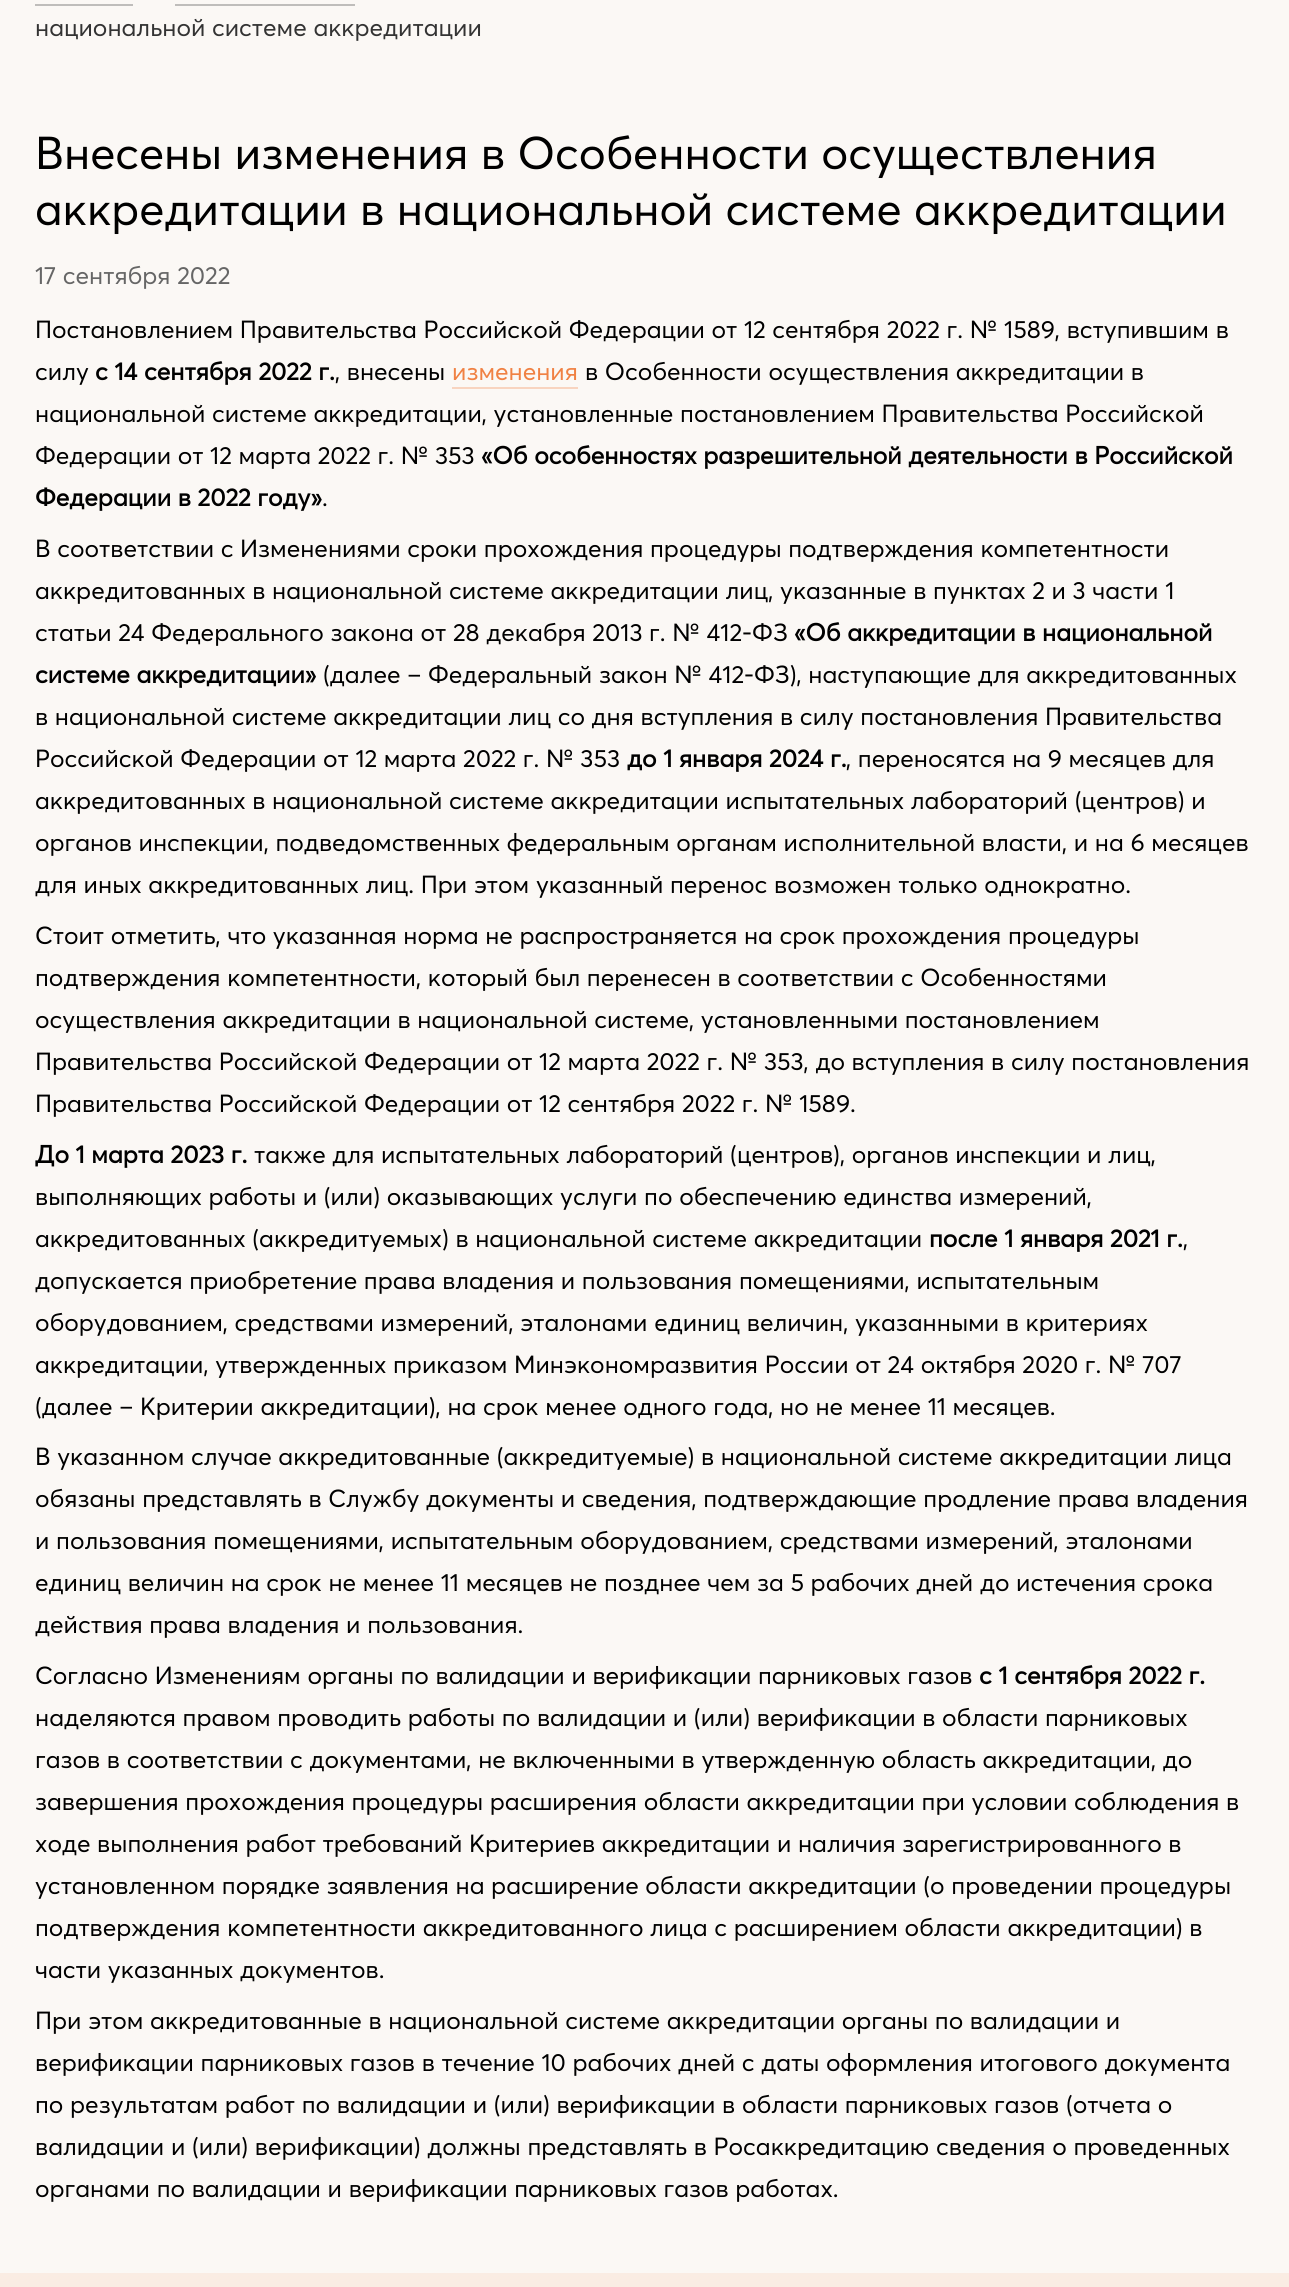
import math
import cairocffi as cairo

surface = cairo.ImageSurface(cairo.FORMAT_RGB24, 1289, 2287)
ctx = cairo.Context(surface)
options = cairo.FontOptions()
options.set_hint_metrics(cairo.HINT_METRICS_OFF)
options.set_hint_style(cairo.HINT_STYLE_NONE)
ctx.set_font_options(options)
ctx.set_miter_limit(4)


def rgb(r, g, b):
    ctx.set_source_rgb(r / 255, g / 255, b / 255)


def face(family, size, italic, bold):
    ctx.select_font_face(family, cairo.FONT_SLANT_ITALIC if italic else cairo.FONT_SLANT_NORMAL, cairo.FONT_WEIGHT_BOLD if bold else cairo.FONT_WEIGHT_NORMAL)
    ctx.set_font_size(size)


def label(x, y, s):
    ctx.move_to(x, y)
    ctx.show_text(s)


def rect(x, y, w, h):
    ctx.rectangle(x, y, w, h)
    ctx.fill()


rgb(251, 248, 245)
ctx.paint()
rgb(191, 189, 187)
rect(35, 4, 98, 2)
rect(175, 4, 180, 2)
face('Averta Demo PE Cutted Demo', 24.5, 0, 0)
rgb(51, 51, 51)
label(35, 36, 'национальной системе аккредитации')
face('Averta Demo PE Cutted Demo', 45.5, 0, 0)
rgb(0, 0, 0)
label(35, 169, 'Внесены изменения в Особенности осуществления')
label(35, 225, 'аккредитации в национальной системе аккредитации')
face('Averta Demo PE Cutted Demo', 24.5, 0, 0)
rgb(102, 102, 102)
label(35, 284, '17 сентября 2022')
rgb(0, 0, 0)
label(35, 338, 'Постановлением Правительства Российской Федерации от 12 сентября 2022 г. № 1589, вступившим в')
label(35, 380, 'силу')
face('Averta Demo PE Cutted Demo', 24.5, 0, 1)
label(95, 380, 'с 14 сентября 2022 г.')
face('Averta Demo PE Cutted Demo', 24.5, 0, 0)
label(335, 380, ', внесены')
rgb(240, 129, 67)
label(452, 380, 'изменения')
rgb(248, 212, 192)
rect(452, 387, 126, 2)
rgb(0, 0, 0)
label(585, 380, 'в Особенности осуществления аккредитации в')
label(35, 422, 'национальной системе аккредитации, установленные постановлением Правительства Российской')
label(35, 464, 'Федерации от 12 марта 2022 г. № 353')
face('Averta Demo PE Cutted Demo', 24.5, 0, 1)
label(481, 464, '«Об особенностях разрешительной деятельности в Российской')
label(35, 506, 'Федерации в 2022 году»')
face('Averta Demo PE Cutted Demo', 24.5, 0, 0)
label(322, 506, '.')
label(35, 557, 'В соответствии с Изменениями сроки прохождения процедуры подтверждения компетентности')
label(35, 599, 'аккредитованных в национальной системе аккредитации лиц, указанные в пунктах 2 и 3 части 1')
label(35, 641, 'статьи 24 Федерального закона от 28 декабря 2013 г. № 412-ФЗ')
face('Averta Demo PE Cutted Demo', 24.5, 0, 1)
label(794, 641, '«Об аккредитации в национальной')
label(35, 683, 'системе аккредитации»')
face('Averta Demo PE Cutted Demo', 24.5, 0, 0)
label(323, 683, '(далее – Федеральный закон № 412-ФЗ), наступающие для аккредитованных')
label(35, 725, 'в национальной системе аккредитации лиц со дня вступления в силу постановления Правительства')
label(35, 767, 'Российской Федерации от 12 марта 2022 г. № 353')
face('Averta Demo PE Cutted Demo', 24.5, 0, 1)
label(627, 767, 'до 1 января 2024 г.')
face('Averta Demo PE Cutted Demo', 24.5, 0, 0)
label(846, 767, ', переносятся на 9 месяцев для')
label(35, 809, 'аккредитованных в национальной системе аккредитации испытательных лабораторий (центров) и')
label(35, 851, 'органов инспекции, подведомственных федеральным органам исполнительной власти, и на 6 месяцев')
label(35, 893, 'для иных аккредитованных лиц. При этом указанный перенос возможен только однократно.')
label(35, 944, 'Стоит отметить, что указанная норма не распространяется на срок прохождения процедуры')
label(35, 986, 'подтверждения компетентности, который был перенесен в соответствии с Особенностями')
label(35, 1028, 'осуществления аккредитации в национальной системе, установленными постановлением')
label(35, 1070, 'Правительства Российской Федерации от 12 марта 2022 г. № 353, до вступления в силу постановления')
label(35, 1112, 'Правительства Российской Федерации от 12 сентября 2022 г. № 1589.')
face('Averta Demo PE Cutted Demo', 24.5, 0, 1)
label(35, 1163, 'До 1 марта 2023 г.')
face('Averta Demo PE Cutted Demo', 24.5, 0, 0)
label(254, 1163, 'также для испытательных лабораторий (центров), органов инспекции и лиц,')
label(35, 1205, 'выполняющих работы и (или) оказывающих услуги по обеспечению единства измерений,')
label(35, 1247, 'аккредитованных (аккредитуемых) в национальной системе аккредитации')
face('Averta Demo PE Cutted Demo', 24.5, 0, 1)
label(929, 1247, 'после 1 января 2021 г.')
face('Averta Demo PE Cutted Demo', 24.5, 0, 0)
label(1183, 1247, ',')
label(35, 1289, 'допускается приобретение права владения и пользования помещениями, испытательным')
label(35, 1331, 'оборудованием, средствами измерений, эталонами единиц величин, указанными в критериях')
label(35, 1373, 'аккредитации, утвержденных приказом Минэкономразвития России от 24 октября 2020 г. № 707')
label(35, 1415, '(далее – Критерии аккредитации), на срок менее одного года, но не менее 11 месяцев.')
label(35, 1465, 'В указанном случае аккредитованные (аккредитуемые) в национальной системе аккредитации лица')
label(35, 1507, 'обязаны представлять в Службу документы и сведения, подтверждающие продление права владения')
label(35, 1549, 'и пользования помещениями, испытательным оборудованием, средствами измерений, эталонами')
label(35, 1591, 'единиц величин на срок не менее 11 месяцев не позднее чем за 5 рабочих дней до истечения срока')
label(35, 1633, 'действия права владения и пользования.')
label(35, 1684, 'Согласно Изменениям органы по валидации и верификации парниковых газов')
face('Averta Demo PE Cutted Demo', 24.5, 0, 1)
label(979, 1684, 'с 1 сентября 2022 г.')
face('Averta Demo PE Cutted Demo', 24.5, 0, 0)
label(35, 1726, 'наделяются правом проводить работы по валидации и (или) верификации в области парниковых')
label(35, 1768, 'газов в соответствии с документами, не включенными в утвержденную область аккредитации, до')
label(35, 1810, 'завершения прохождения процедуры расширения области аккредитации при условии соблюдения в')
label(35, 1852, 'ходе выполнения работ требований Критериев аккредитации и наличия зарегистрированного в')
label(35, 1894, 'установленном порядке заявления на расширение области аккредитации (о проведении процедуры')
label(35, 1936, 'подтверждения компетентности аккредитованного лица с расширением области аккредитации) в')
label(35, 1978, 'части указанных документов.')
label(35, 2029, 'При этом аккредитованные в национальной системе аккредитации органы по валидации и')
label(35, 2071, 'верификации парниковых газов в течение 10 рабочих дней с даты оформления итогового документа')
label(35, 2113, 'по результатам работ по валидации и (или) верификации в области парниковых газов (отчета о')
label(35, 2155, 'валидации и (или) верификации) должны представлять в Росаккредитацию сведения о проведенных')
label(35, 2197, 'органами по валидации и верификации парниковых газов работах.')
rgb(250, 236, 227)
rect(0, 2273, 1289, 14)
surface.write_to_png('render.png')
